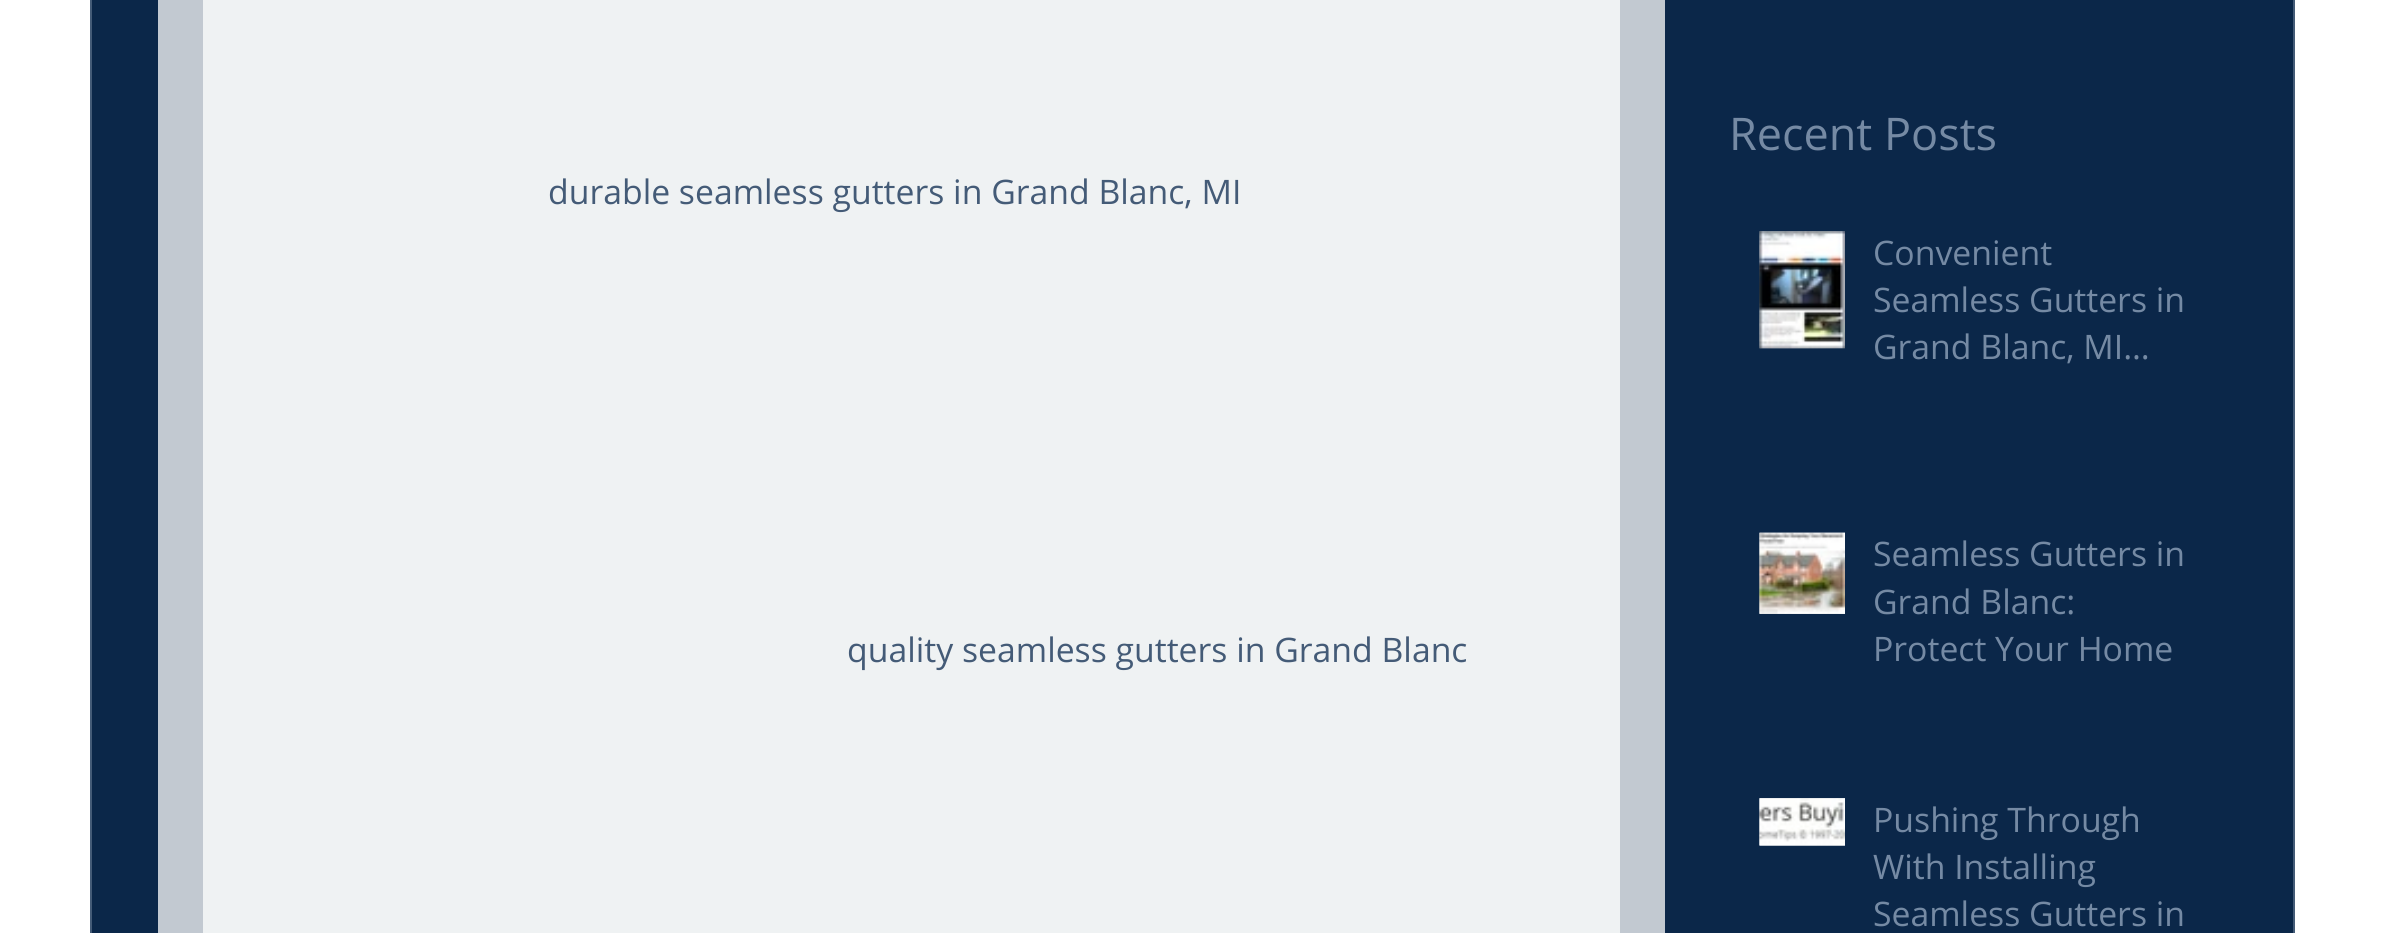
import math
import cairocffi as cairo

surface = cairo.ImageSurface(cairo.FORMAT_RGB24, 2381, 933)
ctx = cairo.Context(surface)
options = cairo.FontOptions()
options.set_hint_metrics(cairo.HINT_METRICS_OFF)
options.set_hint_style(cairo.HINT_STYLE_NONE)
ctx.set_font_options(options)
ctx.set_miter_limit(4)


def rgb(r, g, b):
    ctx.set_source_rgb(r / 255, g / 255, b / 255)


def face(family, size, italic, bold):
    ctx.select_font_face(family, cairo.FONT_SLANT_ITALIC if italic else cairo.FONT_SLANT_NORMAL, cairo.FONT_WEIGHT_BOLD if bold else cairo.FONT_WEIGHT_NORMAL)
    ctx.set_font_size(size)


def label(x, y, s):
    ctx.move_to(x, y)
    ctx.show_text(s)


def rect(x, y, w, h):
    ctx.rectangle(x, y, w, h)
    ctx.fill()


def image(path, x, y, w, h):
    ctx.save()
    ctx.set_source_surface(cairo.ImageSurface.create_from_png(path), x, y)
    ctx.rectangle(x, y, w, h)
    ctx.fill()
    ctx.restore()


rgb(255, 255, 255)
ctx.paint()
rgb(11, 39, 73)
ctx.rectangle(91, -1, 2203, 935)
ctx.fill_preserve()
rgb(68, 91, 119)
ctx.stroke()
face('Open Sans', 45, 0, 0)
rgb(117, 138, 164)
label(1729, 150, 'Recent Posts')
rgb(194, 201, 209)
rect(158, 0, 1507, 933)
rgb(239, 242, 243)
rect(203, 0, 1417, 933)
face('Open Sans', 33.75, 0, 0)
rgb(68, 91, 119)
label(548, 204, 'durable seamless gutters in Grand Blanc, MI')
label(847, 662, 'quality seamless gutters in Grand Blanc')
image('image0.png', 1759, 231, 86, 118)
image('image1.png', 1759, 231, 86, 118)
rgb(117, 138, 164)
label(1873, 265, 'Convenient')
label(1873, 312, 'Seamless Gutters in')
label(1873, 359, 'Grand Blanc, MI…')
image('image2.png', 1759, 532, 86, 82)
image('image3.png', 1759, 532, 86, 82)
label(1873, 566, 'Seamless Gutters in')
label(1873, 614, 'Grand Blanc:')
label(1873, 661, 'Protect Your Home')
image('image4.png', 1759, 798, 86, 48)
image('image5.png', 1759, 798, 86, 48)
label(1873, 832, 'Pushing Through')
label(1873, 879, 'With Installing')
label(1873, 926, 'Seamless Gutters in')
surface.write_to_png('render.png')
